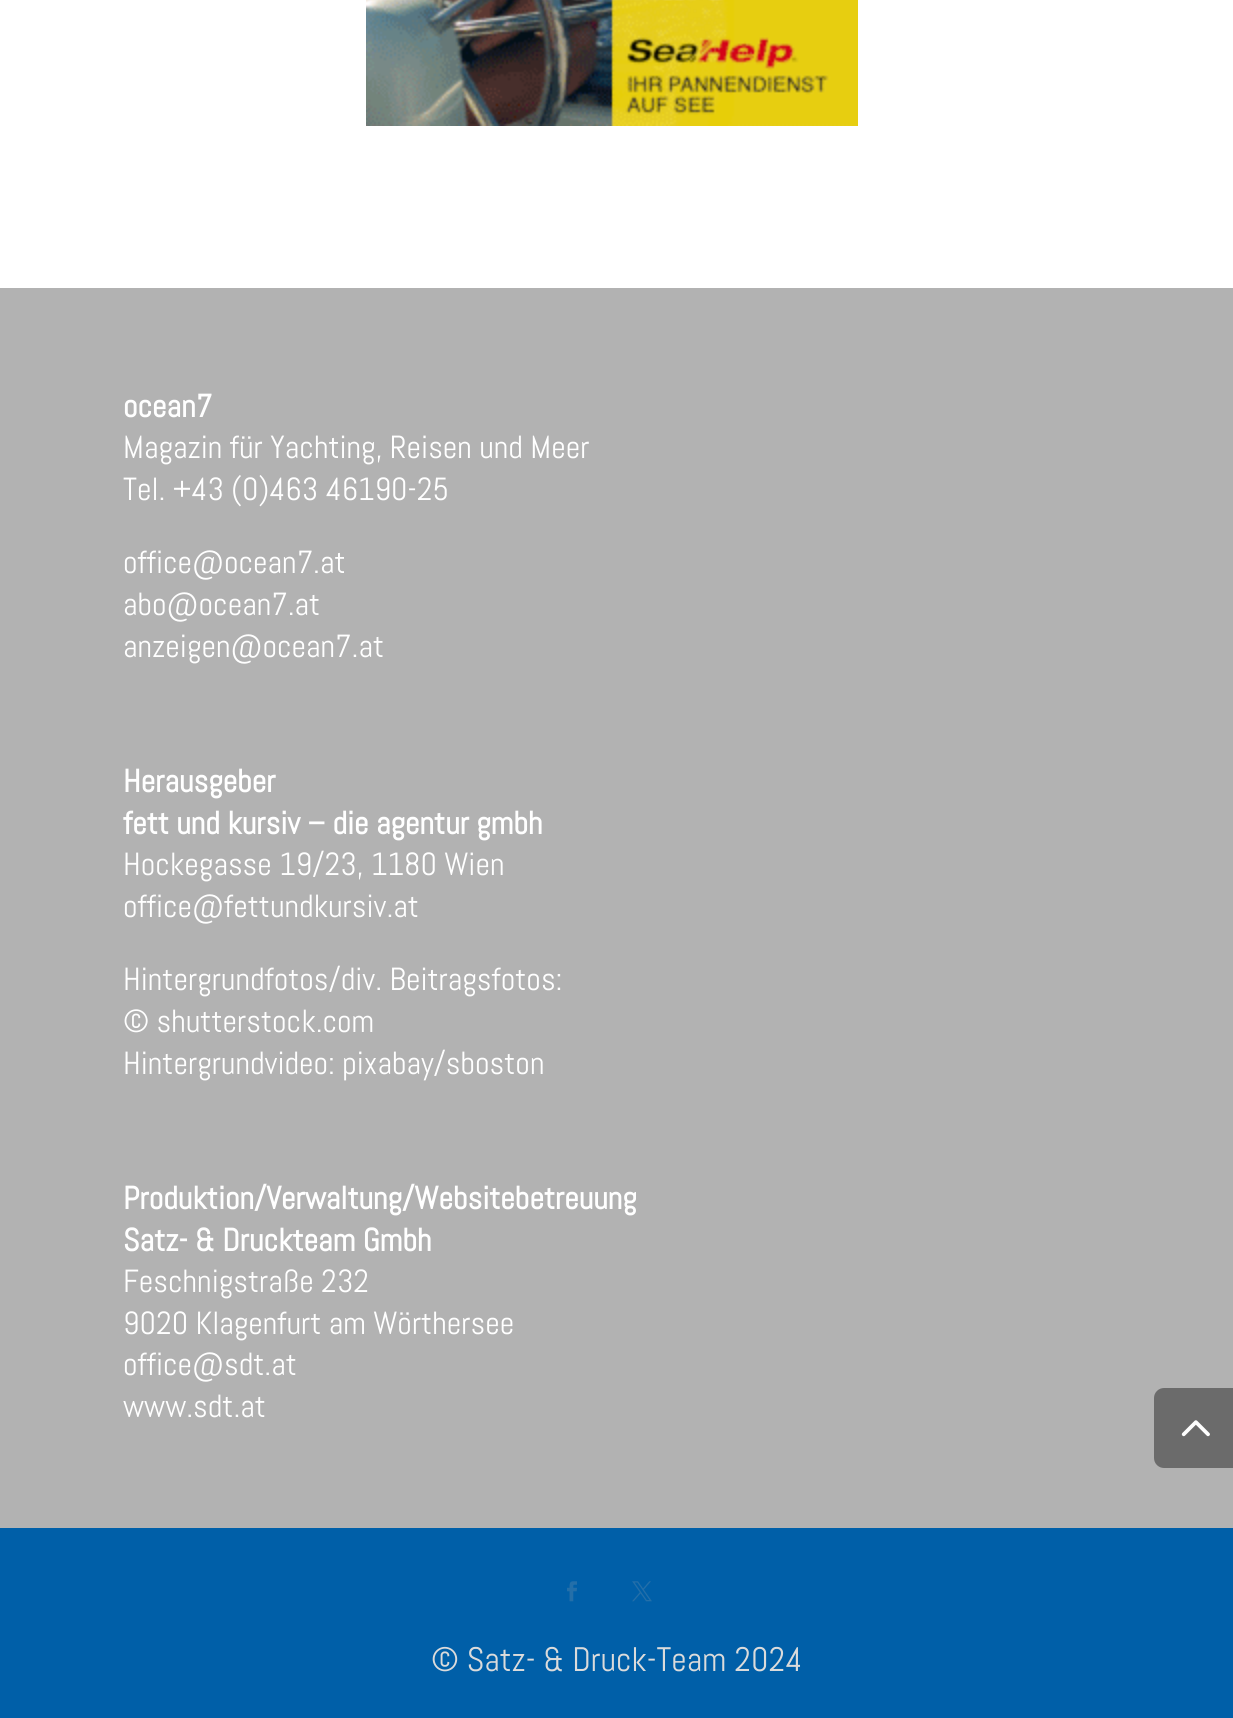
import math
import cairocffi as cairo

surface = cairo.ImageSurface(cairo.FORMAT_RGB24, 1233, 1718)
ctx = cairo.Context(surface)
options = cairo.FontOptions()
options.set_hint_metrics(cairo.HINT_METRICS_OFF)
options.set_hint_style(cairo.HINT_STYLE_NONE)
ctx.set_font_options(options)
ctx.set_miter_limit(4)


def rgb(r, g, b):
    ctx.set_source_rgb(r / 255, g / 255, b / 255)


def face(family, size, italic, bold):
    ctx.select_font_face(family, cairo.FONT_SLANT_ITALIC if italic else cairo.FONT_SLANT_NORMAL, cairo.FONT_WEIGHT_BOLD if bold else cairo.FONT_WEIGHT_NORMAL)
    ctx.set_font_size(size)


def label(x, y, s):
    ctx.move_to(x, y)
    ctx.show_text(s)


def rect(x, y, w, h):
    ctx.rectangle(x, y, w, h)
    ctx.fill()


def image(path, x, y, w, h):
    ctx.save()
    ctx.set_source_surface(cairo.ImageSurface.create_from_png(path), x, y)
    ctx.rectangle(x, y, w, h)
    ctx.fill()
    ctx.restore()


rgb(255, 255, 255)
ctx.paint()
image('image0.png', 366, 0, 492, 126)
rgb(178, 178, 178)
rect(0, 288, 1233, 1240)
face('Abel', 32, 0, 1)
rgb(255, 255, 255)
label(123, 417, 'ocean7')
face('Abel', 32, 0, 0)
label(123, 458, 'Magazin für Yachting, Reisen und Meer')
label(123, 500, 'Tel. +43 (0)463 46190-25')
label(123, 573, 'office@ocean7.at')
label(123, 615, 'abo@ocean7.at')
label(123, 657, 'anzeigen@ocean7.at')
face('Abel', 32, 0, 1)
label(123, 792, 'Herausgeber')
label(123, 834, 'fett und kursiv – die agentur gmbh')
face('Abel', 32, 0, 0)
label(123, 875, 'Hockegasse 19/23, 1180 Wien')
label(123, 917, 'office@fettundkursiv.at')
label(123, 990, 'Hintergrundfotos/div. Beitragsfotos:')
label(123, 1032, '© shutterstock.com')
label(123, 1074, 'Hintergrundvideo: pixabay/sboston')
face('Abel', 32, 0, 1)
label(123, 1209, 'Produktion/Verwaltung/Websitebetreuung')
label(123, 1251, 'Satz- & Druckteam Gmbh')
face('Abel', 32, 0, 0)
label(123, 1292, 'Feschnigstraße 232')
label(123, 1334, '9020 Klagenfurt am Wörthersee')
label(123, 1375, 'office@sdt.at')
label(123, 1417, 'www.sdt.at')
rgb(0, 95, 168)
rect(0, 1528, 1233, 190)
image('image1.png', 567, 1581, 10, 21)
image('image2.png', 632, 1581, 20, 21)
face('Abel', 34, 0, 0)
rgb(219, 219, 219)
label(431, 1671, '© Satz- & Druck-Team 2024')
rgb(107, 107, 107)
ctx.new_path()
ctx.move_to(1164, 1388)
ctx.line_to(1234, 1388)
ctx.line_to(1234, 1468)
ctx.line_to(1164, 1468)
ctx.curve_to(1158.5, 1468, 1154, 1463.5, 1154, 1458)
ctx.line_to(1154, 1398)
ctx.curve_to(1154, 1392.5, 1158.5, 1388, 1164, 1388)
ctx.close_path()
ctx.fill()
image('image3.png', 1181, 1420, 29, 17)
surface.write_to_png('render.png')
